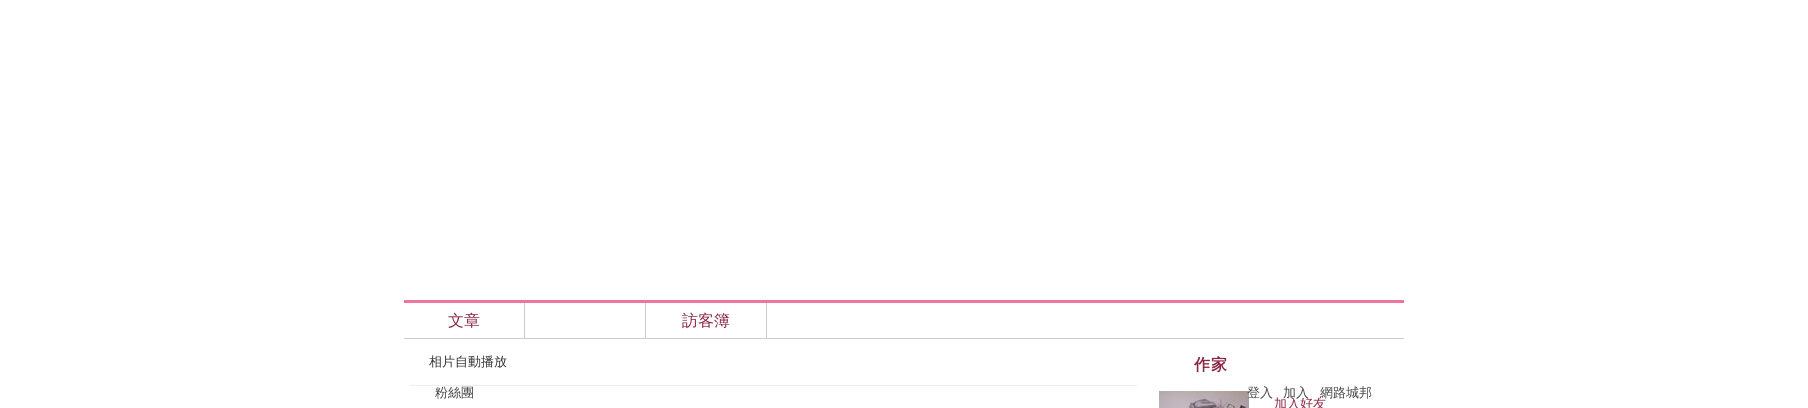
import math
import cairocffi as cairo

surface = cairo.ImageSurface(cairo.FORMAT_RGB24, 1808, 408)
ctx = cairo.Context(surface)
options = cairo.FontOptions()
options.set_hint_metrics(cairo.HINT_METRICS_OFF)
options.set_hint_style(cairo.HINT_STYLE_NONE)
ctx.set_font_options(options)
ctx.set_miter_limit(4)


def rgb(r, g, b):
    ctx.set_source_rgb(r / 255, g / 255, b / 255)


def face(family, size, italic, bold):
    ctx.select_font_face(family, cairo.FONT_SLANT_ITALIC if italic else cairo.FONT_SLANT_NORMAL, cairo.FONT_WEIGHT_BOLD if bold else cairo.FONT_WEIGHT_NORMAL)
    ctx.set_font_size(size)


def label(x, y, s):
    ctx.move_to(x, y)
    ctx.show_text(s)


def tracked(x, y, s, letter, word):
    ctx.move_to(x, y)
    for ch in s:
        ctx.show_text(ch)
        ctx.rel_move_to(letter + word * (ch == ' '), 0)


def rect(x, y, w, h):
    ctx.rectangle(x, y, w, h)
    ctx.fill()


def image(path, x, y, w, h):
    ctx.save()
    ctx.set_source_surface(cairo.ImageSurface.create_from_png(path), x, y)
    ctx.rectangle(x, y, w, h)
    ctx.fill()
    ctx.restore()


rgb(255, 255, 255)
ctx.paint()
rgb(235, 118, 158)
rect(404, 300, 1000, 3)
rgb(204, 204, 204)
rect(404, 338, 1000, 1)
rect(524, 303, 1, 35)
face('WenQuanYi Zen Hei Medium', 16, 0, 0)
rgb(137, 39, 69)
label(448, 326, '文章')
rgb(204, 204, 204)
rect(645, 303, 1, 35)
rect(766, 303, 1, 35)
rgb(137, 39, 69)
label(682, 326, '訪客簿')
rgb(238, 238, 238)
rect(409, 385, 728, 1)
face('WenQuanYi Zen Hei Medium', 13, 0, 0)
rgb(51, 51, 51)
label(429, 366, '相片自動播放')
face('WenQuanYi Zen Hei', 16, 0, 1)
rgb(137, 39, 69)
tracked(1194, 370, '作家', 1, 0)
image('image0.png', 1159, 391, 90, 17)
face('WenQuanYi Zen Hei Medium', 13, 0, 0)
label(1274, 408, '加入好友')
rgb(68, 68, 68)
label(435, 397, '粉絲團')
label(1247, 397, '登入')
label(1283, 397, '加入')
label(1320, 397, '網路城邦')
surface.write_to_png('render.png')
